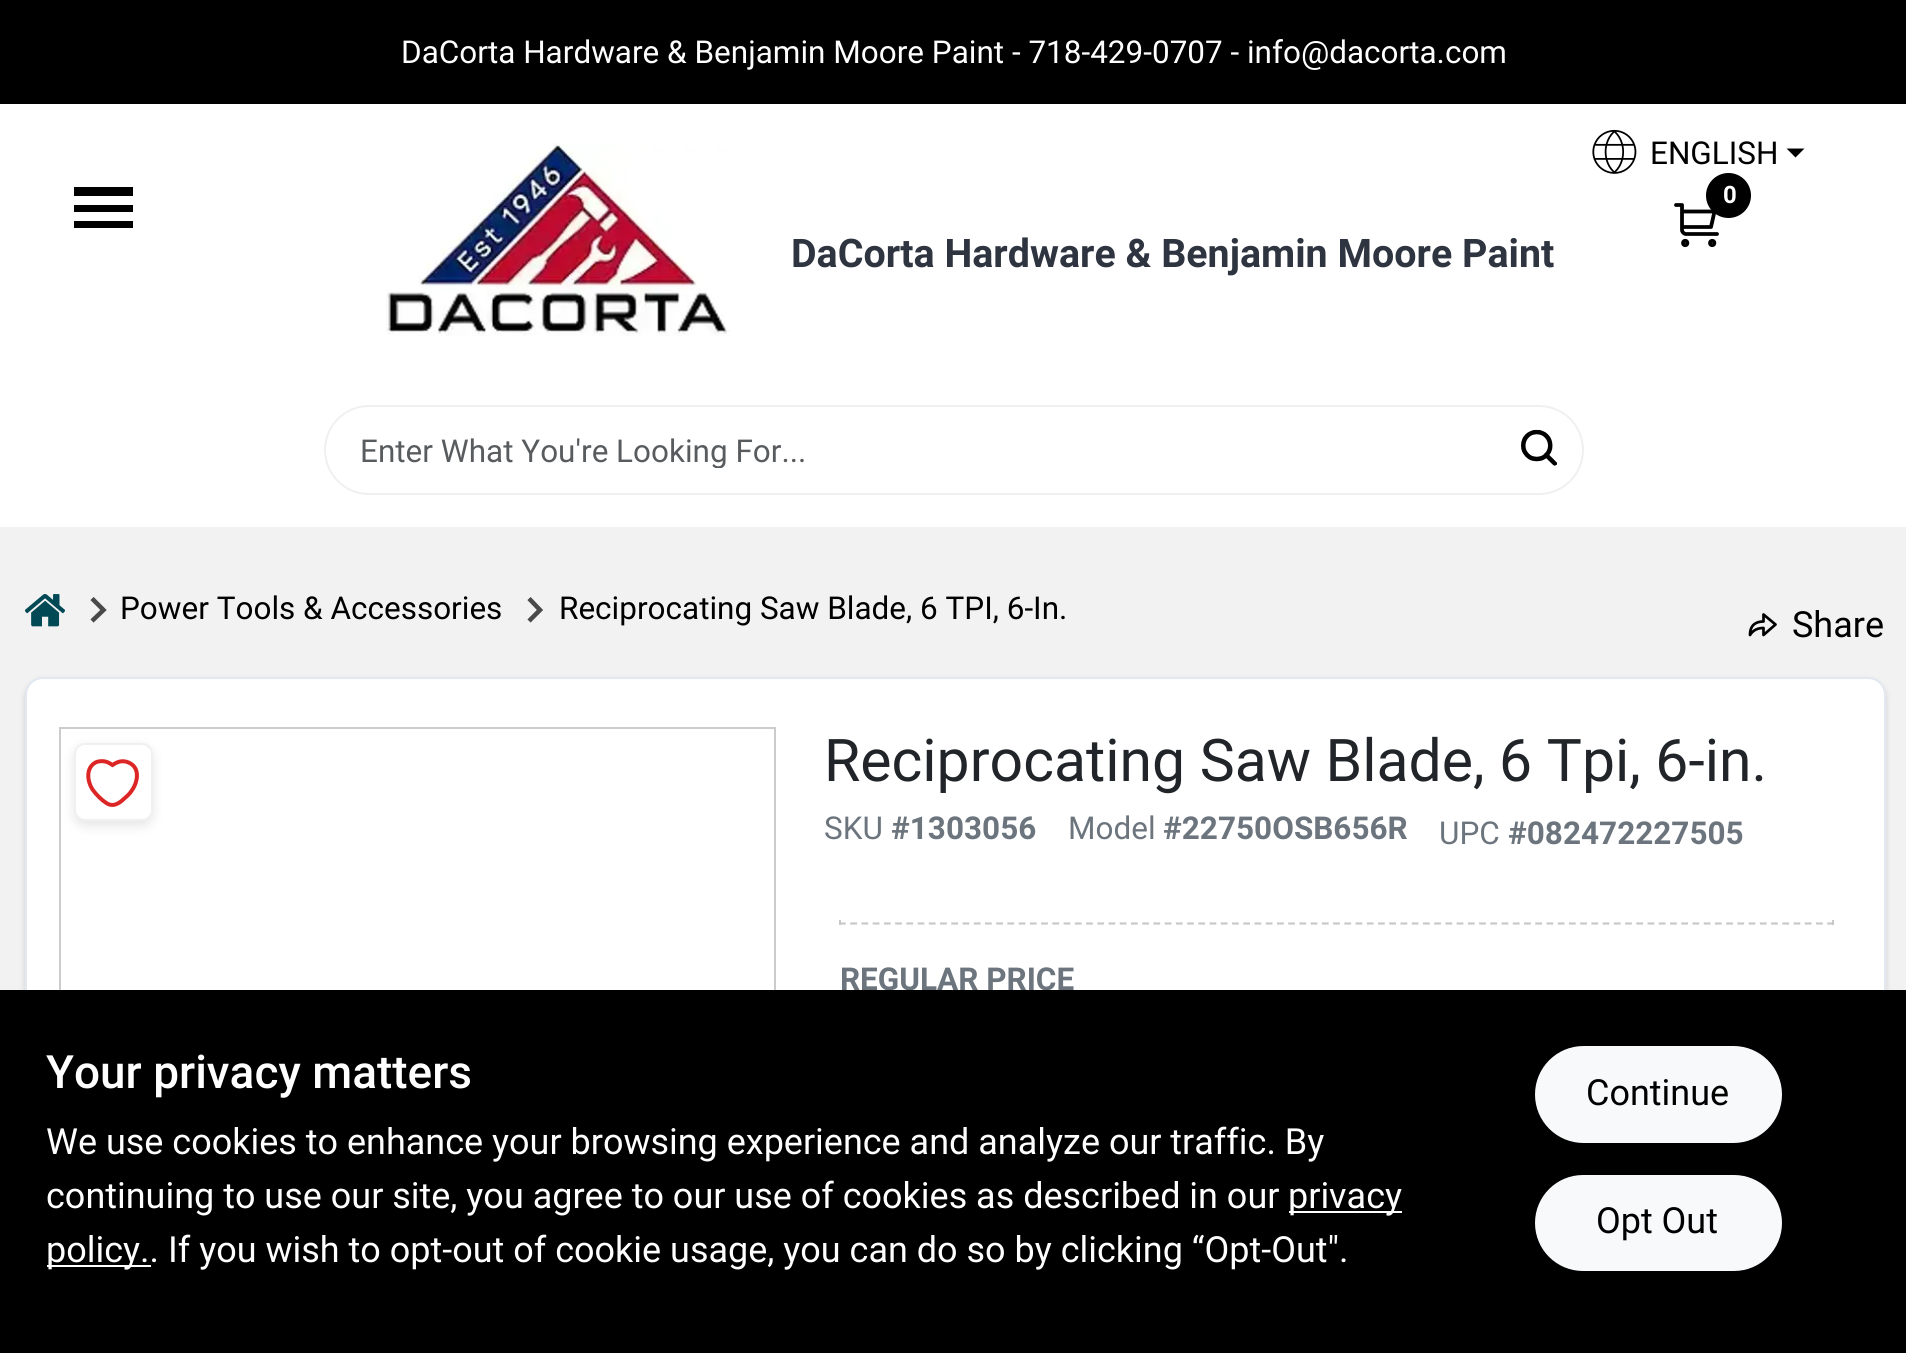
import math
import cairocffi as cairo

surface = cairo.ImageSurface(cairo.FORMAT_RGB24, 1906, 1353)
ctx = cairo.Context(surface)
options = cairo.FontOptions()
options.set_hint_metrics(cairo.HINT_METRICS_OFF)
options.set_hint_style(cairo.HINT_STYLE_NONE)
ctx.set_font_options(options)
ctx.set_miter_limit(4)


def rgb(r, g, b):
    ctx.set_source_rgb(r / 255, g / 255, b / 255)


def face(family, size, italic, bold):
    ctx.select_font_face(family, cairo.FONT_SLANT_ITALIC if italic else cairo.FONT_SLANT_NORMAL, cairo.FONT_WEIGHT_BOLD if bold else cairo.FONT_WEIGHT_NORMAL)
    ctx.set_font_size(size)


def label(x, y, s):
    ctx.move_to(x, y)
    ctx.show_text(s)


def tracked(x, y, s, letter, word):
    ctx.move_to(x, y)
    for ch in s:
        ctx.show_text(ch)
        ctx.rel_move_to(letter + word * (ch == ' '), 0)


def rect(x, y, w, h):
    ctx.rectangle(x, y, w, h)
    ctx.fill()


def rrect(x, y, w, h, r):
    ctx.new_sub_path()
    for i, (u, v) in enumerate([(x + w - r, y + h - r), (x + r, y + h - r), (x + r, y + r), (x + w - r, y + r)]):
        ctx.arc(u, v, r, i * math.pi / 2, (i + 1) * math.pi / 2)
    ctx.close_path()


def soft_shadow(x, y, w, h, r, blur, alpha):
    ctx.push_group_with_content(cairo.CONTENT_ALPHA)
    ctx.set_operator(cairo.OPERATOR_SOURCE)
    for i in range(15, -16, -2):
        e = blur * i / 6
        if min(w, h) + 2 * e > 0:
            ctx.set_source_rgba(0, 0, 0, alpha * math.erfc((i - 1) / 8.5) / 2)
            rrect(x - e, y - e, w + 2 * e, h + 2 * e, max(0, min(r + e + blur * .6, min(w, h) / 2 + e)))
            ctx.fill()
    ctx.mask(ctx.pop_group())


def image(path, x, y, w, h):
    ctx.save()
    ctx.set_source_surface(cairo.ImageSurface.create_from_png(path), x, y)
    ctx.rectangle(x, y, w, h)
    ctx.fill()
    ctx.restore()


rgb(242, 242, 242)
ctx.paint()
rgb(0, 0, 0)
rect(0, 0, 1906, 104)
face('Roboto', 31.5, 0, 0)
rgb(255, 255, 255)
label(401, 63, 'DaCorta Hardware & Benjamin Moore Paint - 718-429-0707 - info@dacorta.com')
rect(0, 104, 1906, 423)
rgb(0, 0, 0)
rect(74, 187, 59, 9)
rect(74, 205, 59, 7)
rect(74, 221, 59, 7)
image('image0.png', 1592, 129, 45, 45)
label(1650, 164, 'ENGLISH')
ctx.new_path()
ctx.move_to(1786.5, 148.5)
ctx.line_to(1804.5, 148.5)
ctx.line_to(1795.5, 157.5)
ctx.close_path()
ctx.fill()
ctx.new_path()
ctx.move_to(1676, 205)
ctx.line_to(1682, 205)
ctx.line_to(1682, 230)
ctx.curve_to(1682, 232, 1684, 234, 1686, 234)
ctx.line_to(1717, 234)
ctx.move_to(1683, 211.5)
ctx.line_to(1714.5, 211.5)
ctx.line_to(1711, 227)
ctx.line_to(1683, 227)
ctx.set_line_width(3.8)
ctx.set_line_cap(cairo.LINE_CAP_ROUND)
ctx.set_line_join(cairo.LINE_JOIN_ROUND)
ctx.stroke()
ctx.arc(1728.5, 195.5, 22.5, 0, 2 * math.pi)
ctx.fill()
face('Roboto', 24, 0, 1)
rgb(255, 255, 255)
tracked(1723, 203, '0', -2, 0)
ctx.new_path()
ctx.arc(1685.2, 243, 2.2, 0, 2 * math.pi)
rgb(0, 0, 0)
ctx.set_line_cap(cairo.LINE_CAP_BUTT)
ctx.set_line_join(cairo.LINE_JOIN_MITER)
ctx.stroke()
ctx.arc(1712.2, 243, 2.2, 0, 2 * math.pi)
ctx.stroke()
image('image1.png', 386, 143, 344, 193)
face('Roboto', 39.4, 0, 1)
rgb(47, 53, 64)
label(791, 267, 'DaCorta Hardware & Benjamin Moore Paint')
rrect(325, 406, 1258, 88, 44)
rgb(240, 240, 240)
ctx.set_line_width(2)
ctx.stroke()
ctx.save()
ctx.rectangle(360, 432, 1188, 36)
ctx.clip()
face('Roboto', 31.5, 0, 0)
rgb(89, 92, 95)
label(360, 462, 'Enter What You\'re Looking For...')
ctx.restore()
image('image2.png', 1521, 429, 36, 37)
image('image3.png', 25, 594, 40, 33)
ctx.new_path()
ctx.move_to(92, 598.5)
ctx.line_to(103.5, 610)
ctx.line_to(92, 621)
rgb(73, 73, 73)
ctx.set_line_width(4.5)
ctx.stroke()
face('Roboto', 31.5, 0, 0)
rgb(0, 0, 0)
label(120, 619, 'Power Tools & Accessories')
ctx.new_path()
ctx.move_to(529, 598.5)
ctx.line_to(540, 610)
ctx.line_to(529, 621)
rgb(73, 73, 73)
ctx.stroke()
rgb(0, 0, 0)
label(559, 619, 'Reciprocating Saw Blade, 6 TPI, 6-In.')
ctx.new_path()
ctx.move_to(1775.5, 624.5)
ctx.line_to(1763.5, 614.5)
ctx.line_to(1763.5, 621.5)
ctx.curve_to(1757, 621.5, 1750, 624, 1750, 635)
ctx.curve_to(1753.5, 629.5, 1758.5, 628, 1763.5, 628)
ctx.line_to(1763.5, 635)
ctx.close_path()
ctx.set_line_width(2.7)
ctx.set_line_cap(cairo.LINE_CAP_ROUND)
ctx.set_line_join(cairo.LINE_JOIN_ROUND)
ctx.stroke()
face('Roboto', 36, 0, 0)
label(1792, 637, 'Share')
rgb(0, 0, 0)
soft_shadow(25, 680, 1861, 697, 18, 2, 0.06)
soft_shadow(25, 680, 1861, 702, 18, 3.5, 0.1)
rgb(255, 255, 255)
rrect(26, 678, 1859, 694, 17)
ctx.fill_preserve()
rgb(226, 232, 240)
ctx.set_line_width(2)
ctx.set_line_cap(cairo.LINE_CAP_BUTT)
ctx.set_line_join(cairo.LINE_JOIN_MITER)
ctx.stroke()
ctx.rectangle(60, 728, 715, 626)
rgb(204, 204, 204)
ctx.stroke()
rgb(0, 0, 0)
soft_shadow(74, 747, 79, 79, 11, 5.5, 0.1)
rgb(255, 255, 255)
rrect(75, 744, 77, 76, 10)
ctx.fill_preserve()
rgb(240, 240, 240)
ctx.stroke()
ctx.new_path()
ctx.move_to(130.5, 763.5)
ctx.curve_to(125.5, 760.5, 120, 760.5, 115, 763.5)
ctx.line_to(112.5, 765)
ctx.line_to(110, 763.5)
ctx.curve_to(106, 761, 101.5, 760.5, 96.5, 762)
ctx.curve_to(85.5, 767, 87, 781, 92.5, 789.5)
ctx.curve_to(96.5, 795, 101.5, 800, 107, 803.5)
ctx.curve_to(112.5, 806.5, 117, 804.5, 121.5, 801)
ctx.curve_to(126.5, 796.5, 129, 795, 132.5, 789.5)
ctx.curve_to(137.5, 782, 140, 769, 130.5, 763.5)
ctx.close_path()
rgb(220, 38, 38)
ctx.set_line_width(4)
ctx.set_line_cap(cairo.LINE_CAP_ROUND)
ctx.stroke()
face('Roboto', 58.9, 0, 0)
rgb(33, 37, 41)
label(824, 781, 'Reciprocating Saw Blade, 6 Tpi, 6-in.')
face('Roboto', 31.5, 0, 0)
rgb(108, 117, 125)
label(824, 839, 'SKU')
face('Roboto', 31.5, 0, 1)
label(891, 839, '#1303056')
face('Roboto', 31.5, 0, 0)
label(1068, 839, 'Model')
face('Roboto', 31.5, 0, 1)
label(1163, 839, '#22750OSB656R')
face('Roboto', 31.5, 0, 0)
label(1439, 844, 'UPC')
face('Roboto', 31.5, 0, 1)
label(1508, 844, '#082472227505')
rgb(200, 201, 202)
rect(1832, 920, 2, 5)
ctx.new_path()
ctx.move_to(839, 923.5)
ctx.line_to(1834, 923.5)
ctx.set_line_width(2.2)
ctx.set_line_cap(cairo.LINE_CAP_BUTT)
ctx.set_dash([6.75, 4.48])
ctx.stroke()
rect(839, 920, 2, 5)
rgb(108, 117, 125)
label(840, 990, 'REGULAR PRICE')
rgb(0, 0, 0)
rect(0, 990, 1906, 363)
face('Roboto Medium', 45.9, 0, 0)
rgb(255, 255, 255)
label(46, 1088, 'Your privacy matters')
face('Roboto', 36, 0, 0)
label(46, 1154, 'We use cookies to enhance your browsing experience and analyze our traffic. By')
label(46, 1208, 'continuing to use our site, you agree to our use of cookies as described in our')
rect(1289, 1211, 113, 2)
label(1288, 1208, 'privacy')
rect(47, 1265, 104, 2)
label(46, 1262, 'policy.. If you wish to opt-out of cookie usage, you can do so by clicking “Opt-Out".')
rgb(248, 249, 250)
rrect(1536, 1047, 245, 95, 47.5)
ctx.fill_preserve()
ctx.set_line_width(2)
ctx.set_dash([])
ctx.stroke()
rgb(0, 0, 0)
label(1586, 1105, 'Continue')
rgb(248, 249, 250)
rrect(1536, 1176, 245, 94, 47)
ctx.fill_preserve()
ctx.stroke()
rgb(0, 0, 0)
label(1596, 1233, 'Opt Out')
surface.write_to_png('render.png')
